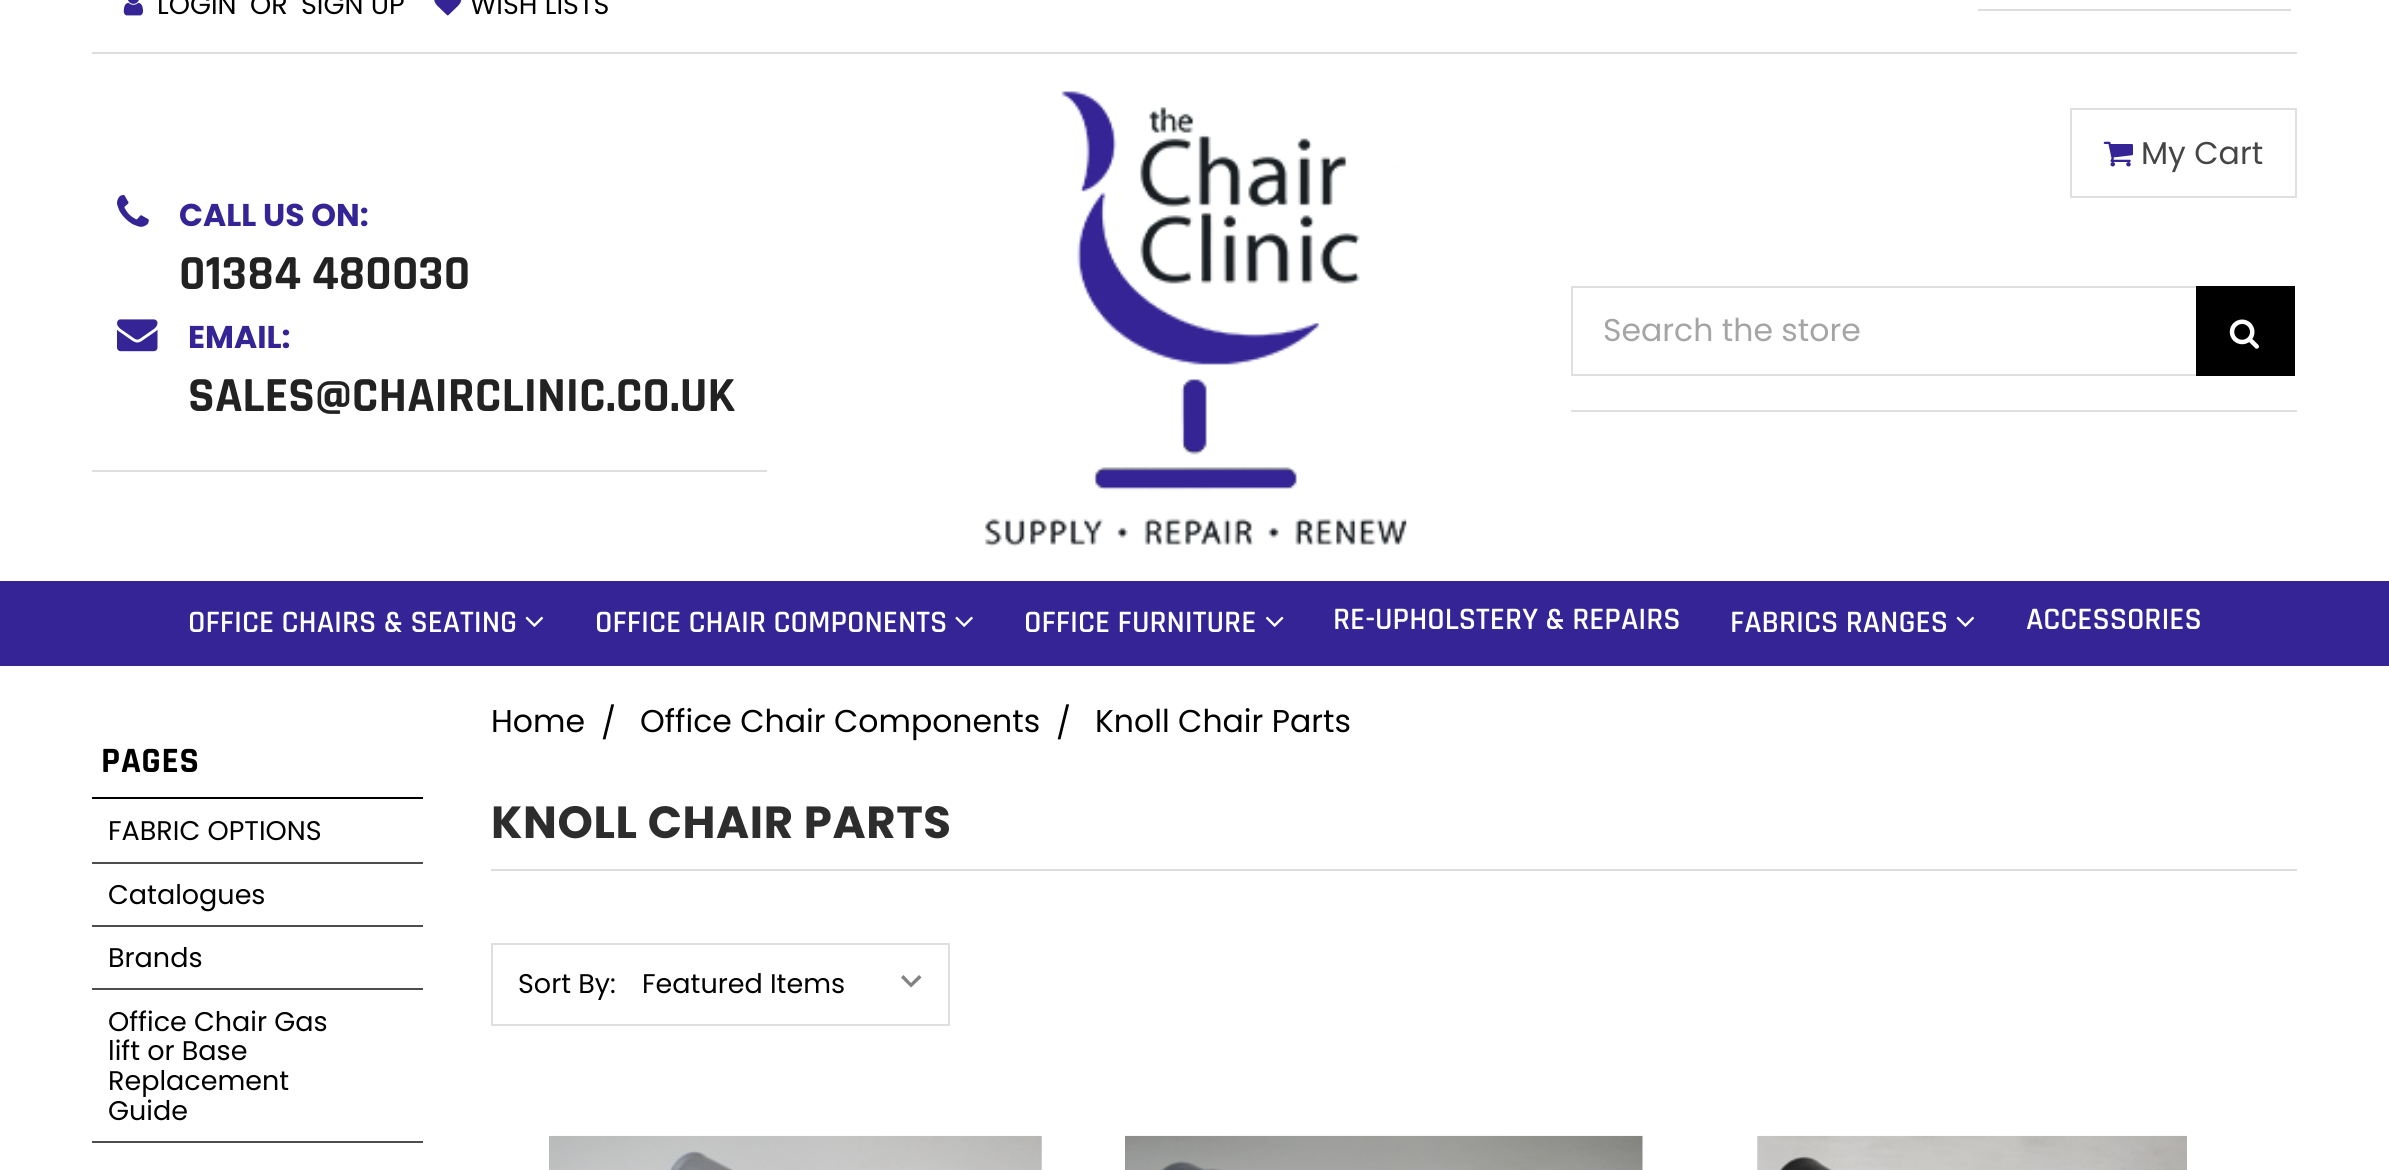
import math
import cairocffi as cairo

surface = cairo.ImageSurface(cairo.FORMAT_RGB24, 2389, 1170)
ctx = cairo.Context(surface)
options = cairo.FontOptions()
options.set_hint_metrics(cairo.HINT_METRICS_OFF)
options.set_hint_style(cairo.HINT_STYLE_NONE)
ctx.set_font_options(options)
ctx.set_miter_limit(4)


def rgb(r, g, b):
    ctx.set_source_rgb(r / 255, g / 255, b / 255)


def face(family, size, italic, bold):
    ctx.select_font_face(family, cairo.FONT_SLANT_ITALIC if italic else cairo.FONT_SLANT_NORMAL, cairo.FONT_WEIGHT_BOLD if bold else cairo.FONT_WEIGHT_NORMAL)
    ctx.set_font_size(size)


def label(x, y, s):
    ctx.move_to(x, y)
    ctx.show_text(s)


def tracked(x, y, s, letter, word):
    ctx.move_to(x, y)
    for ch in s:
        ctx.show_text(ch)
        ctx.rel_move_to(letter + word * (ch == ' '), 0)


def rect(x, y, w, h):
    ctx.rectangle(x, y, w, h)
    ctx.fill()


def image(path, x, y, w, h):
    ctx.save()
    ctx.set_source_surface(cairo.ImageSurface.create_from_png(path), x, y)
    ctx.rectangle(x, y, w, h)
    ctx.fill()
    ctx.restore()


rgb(255, 255, 255)
ctx.paint()
rgb(221, 221, 221)
rect(92, 52, 2205, 2)
image('image0.png', 123, 0, 20, 16)
face('Poppins', 27, 0, 0)
rgb(0, 0, 0)
label(157, 14, 'LOGIN')
label(250, 14, 'OR')
label(301, 14, 'SIGN UP')
image('image1.png', 434, 0, 28, 16)
label(470, 14, 'WISH LISTS')
rgb(221, 221, 221)
rect(1978, 9, 313, 2)
image('image2.png', 985, 91, 422, 456)
ctx.rectangle(2071, 109, 225, 88)
rgb(223, 223, 223)
ctx.stroke()
image('image3.png', 2103, 141, 30, 26)
face('Poppins', 31.5, 0, 0)
rgb(69, 69, 69)
label(2141, 164, 'My Cart')
rgb(223, 223, 223)
rect(92, 470, 675, 2)
image('image4.png', 117, 195, 32, 32)
face('Poppins', 31.5, 0, 1)
rgb(52, 36, 149)
label(179, 226, 'CALL US ON:')
face('Rajdhani', 49.5, 0, 1)
rgb(34, 34, 34)
label(179, 289, '01384 480030')
image('image5.png', 117, 319, 41, 33)
face('Poppins', 31.5, 0, 1)
rgb(52, 36, 149)
label(188, 348, 'EMAIL:')
face('Rajdhani', 49.5, 0, 1)
rgb(34, 34, 34)
label(188, 411, 'SALES@CHAIRCLINIC.CO.UK')
rgb(223, 223, 223)
rect(1571, 410, 726, 2)
ctx.rectangle(1572, 287, 625, 88)
ctx.stroke()
face('Poppins', 31.5, 0, 0)
rgb(165, 165, 165)
label(1603, 341, 'Search the store')
rgb(0, 0, 0)
rect(2196, 286, 99, 90)
image('image6.png', 2229, 319, 30, 30)
rgb(52, 36, 149)
rect(0, 581, 2389, 85)
face('Rajdhani SemiBold', 31.5, 0, 0)
rgb(255, 255, 255)
label(188, 632, 'OFFICE CHAIRS & SEATING')
image('image7.png', 525, 616, 19, 11)
label(595, 632, 'OFFICE CHAIR COMPONENTS')
image('image8.png', 955, 616, 18, 11)
label(1024, 632, 'OFFICE FURNITURE')
image('image9.png', 1265, 616, 19, 11)
label(1333, 629, 'RE-UPHOLSTERY & REPAIRS')
label(1730, 632, 'FABRICS RANGES')
image('image7.png', 1956, 616, 19, 11)
label(2026, 629, 'ACCESSORIES')
rgb(0, 0, 0)
rect(92, 797, 331, 2)
face('Rajdhani', 36, 0, 1)
tracked(101, 772, 'PAGES', 0.6, 0)
rgb(77, 77, 77)
rect(92, 862, 331, 2)
face('Poppins', 27, 0, 0)
rgb(0, 0, 0)
label(108, 840, 'FABRIC OPTIONS')
rgb(77, 77, 77)
rect(92, 925, 331, 2)
rgb(0, 0, 0)
label(108, 904, 'Catalogues')
rgb(77, 77, 77)
rect(92, 988, 331, 2)
rgb(0, 0, 0)
label(108, 967, 'Brands')
rgb(77, 77, 77)
rect(92, 1141, 331, 2)
rgb(0, 0, 0)
label(108, 1031, 'Office Chair Gas')
label(108, 1060, 'lift or Base')
label(108, 1090, 'Replacement')
label(108, 1120, 'Guide')
face('Poppins', 31.5, 0, 0)
label(491, 732, 'Home')
label(601, 734, '/')
label(640, 732, 'Office Chair Components')
label(1056, 734, '/')
label(1095, 732, 'Knoll Chair Parts')
rgb(221, 221, 221)
rect(491, 869, 1806, 2)
face('Poppins', 45, 0, 1)
rgb(45, 45, 45)
tracked(491, 838, 'KNOLL CHAIR PARTS', 0.6, 0)
ctx.rectangle(492, 944, 457, 81)
rgb(223, 223, 223)
ctx.stroke()
face('Poppins', 27, 0, 0)
rgb(0, 0, 0)
label(518, 993, 'Sort By:')
rgb(130, 130, 130)
ctx.new_path()
ctx.move_to(919, 975)
ctx.line_to(911, 983)
ctx.line_to(903.5, 975)
ctx.line_to(901, 977.5)
ctx.line_to(911, 987.5)
ctx.line_to(921.5, 977.5)
ctx.close_path()
ctx.fill()
rgb(0, 0, 0)
label(642, 993, 'Featured Items')
image('image10.png', 549, 1135, 493, 35)
image('image11.png', 1125, 1135, 518, 35)
image('image12.png', 1757, 1135, 430, 35)
surface.write_to_png('render.png')
